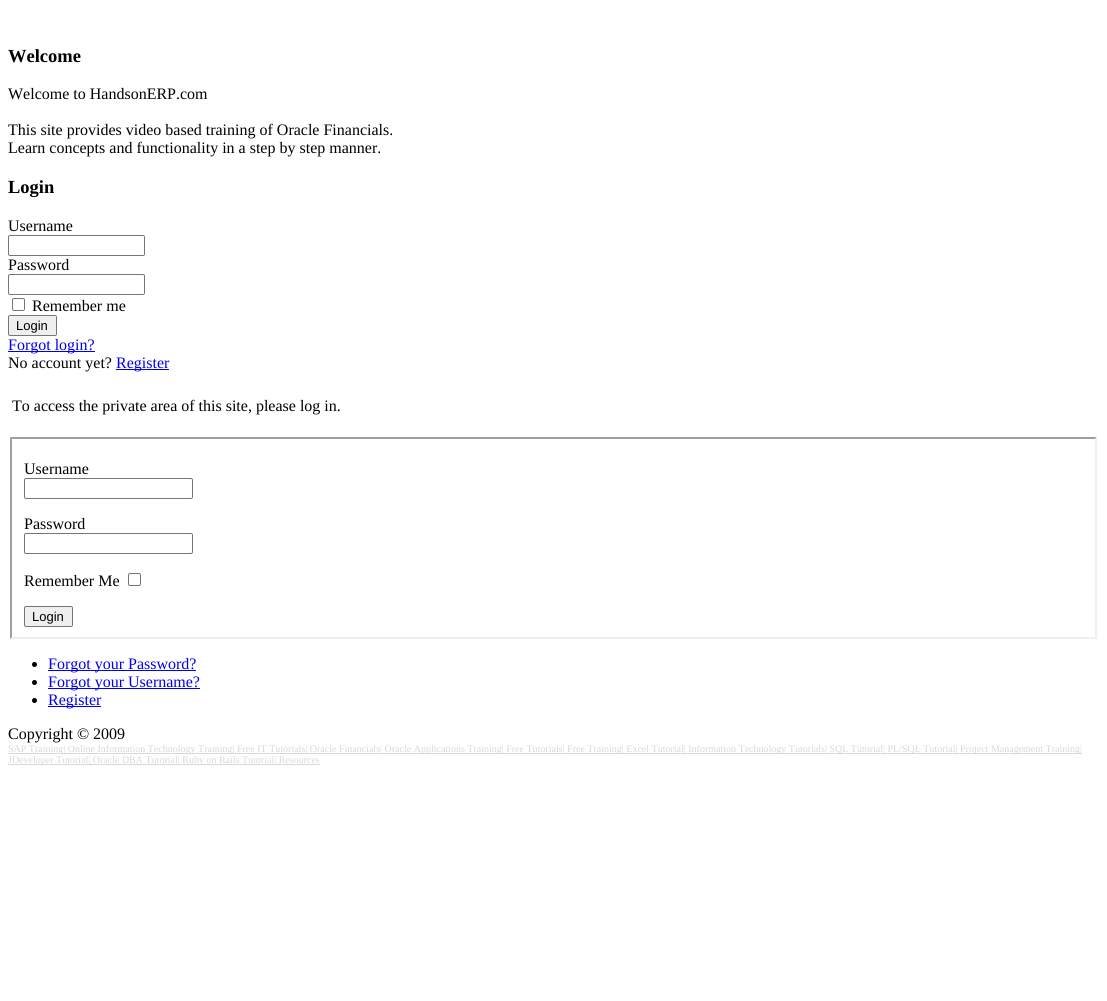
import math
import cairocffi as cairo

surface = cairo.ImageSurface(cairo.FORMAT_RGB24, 1107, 1001)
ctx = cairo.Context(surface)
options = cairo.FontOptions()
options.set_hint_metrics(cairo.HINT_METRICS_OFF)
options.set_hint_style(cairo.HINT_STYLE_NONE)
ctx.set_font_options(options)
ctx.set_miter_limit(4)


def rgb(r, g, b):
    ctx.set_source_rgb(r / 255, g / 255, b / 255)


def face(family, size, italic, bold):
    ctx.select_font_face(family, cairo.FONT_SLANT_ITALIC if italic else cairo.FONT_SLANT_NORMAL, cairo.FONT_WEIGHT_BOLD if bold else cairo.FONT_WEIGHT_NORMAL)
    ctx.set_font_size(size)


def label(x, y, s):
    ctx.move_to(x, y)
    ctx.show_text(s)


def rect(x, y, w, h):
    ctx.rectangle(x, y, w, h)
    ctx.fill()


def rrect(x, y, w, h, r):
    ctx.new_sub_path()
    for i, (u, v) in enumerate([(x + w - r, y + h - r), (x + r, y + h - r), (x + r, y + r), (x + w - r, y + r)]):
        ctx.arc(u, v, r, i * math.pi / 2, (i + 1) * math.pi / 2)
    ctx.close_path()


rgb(255, 255, 255)
ctx.paint()
face('Liberation Serif', 18.5, 0, 1)
rgb(0, 0, 0)
label(8, 62, 'Welcome')
face('Liberation Serif', 16, 0, 0)
label(8, 99, 'Welcome to HandsonERP.com')
label(8, 135, 'This site provides video based training of Oracle Financials.')
label(8, 153, 'Learn concepts and functionality in a step by step manner.')
face('Liberation Serif', 18.5, 0, 1)
label(8, 193, 'Login')
face('Liberation Serif', 16, 0, 0)
label(8, 231, 'Username')
rrect(8.5, 235.5, 136, 20, 1.5)
rgb(118, 118, 118)
ctx.set_line_width(1)
ctx.stroke()
rgb(0, 0, 0)
label(8, 270, 'Password')
rrect(8.5, 274.5, 136, 20, 1.5)
rgb(118, 118, 118)
ctx.stroke()
rrect(12.5, 298.5, 12, 12, 1.5)
ctx.stroke()
rgb(0, 0, 0)
label(32, 311, 'Remember me')
rgb(239, 239, 239)
rrect(8.5, 315.5, 48, 20, 1.5)
ctx.fill_preserve()
rgb(118, 118, 118)
ctx.stroke()
face('Liberation Sans', 13, 0, 0)
rgb(0, 0, 0)
label(16, 330, 'Login')
rgb(0, 0, 238)
rect(8, 351, 87, 1)
face('Liberation Serif', 16, 0, 0)
label(8, 350, 'Forgot login?')
rgb(0, 0, 0)
label(8, 368, 'No account yet?')
rgb(0, 0, 238)
rect(116, 369, 53, 1)
label(116, 368, 'Register')
rgb(0, 0, 0)
label(12, 411, 'To access the private area of this site, please log in.')
rgb(159, 159, 159)
ctx.new_path()
ctx.move_to(10, 437)
ctx.line_to(1097, 437)
ctx.line_to(1095, 439)
ctx.line_to(12, 439)
ctx.close_path()
ctx.fill()
rgb(239, 239, 239)
ctx.new_path()
ctx.move_to(1097, 437)
ctx.line_to(1097, 639)
ctx.line_to(1095, 637)
ctx.line_to(1095, 439)
ctx.close_path()
ctx.fill()
ctx.new_path()
ctx.move_to(1097, 639)
ctx.line_to(10, 639)
ctx.line_to(12, 637)
ctx.line_to(1095, 637)
ctx.close_path()
ctx.fill()
rgb(159, 159, 159)
ctx.new_path()
ctx.move_to(10, 639)
ctx.line_to(10, 437)
ctx.line_to(12, 439)
ctx.line_to(12, 637)
ctx.close_path()
ctx.fill()
rgb(0, 0, 0)
label(24, 474, 'Username')
rrect(24.5, 478.5, 168, 20, 1.5)
rgb(118, 118, 118)
ctx.stroke()
rgb(0, 0, 0)
label(24, 529, 'Password')
rrect(24.5, 533.5, 168, 20, 1.5)
rgb(118, 118, 118)
ctx.stroke()
rgb(0, 0, 0)
label(24, 586, 'Remember Me')
rrect(128.5, 573.5, 12, 12, 1.5)
rgb(118, 118, 118)
ctx.stroke()
rgb(239, 239, 239)
rrect(24.5, 606.5, 48, 20, 1.5)
ctx.fill_preserve()
rgb(118, 118, 118)
ctx.stroke()
face('Liberation Sans', 13, 0, 0)
rgb(0, 0, 0)
label(32, 621, 'Login')
ctx.new_path()
ctx.arc(34.5, 664.5, 2.5, 0, 2 * math.pi)
ctx.fill()
rgb(0, 0, 238)
rect(48, 670, 148, 1)
face('Liberation Serif', 16, 0, 0)
label(48, 669, 'Forgot your Password?')
rgb(0, 0, 0)
ctx.new_path()
ctx.arc(34.5, 682.5, 2.5, 0, 2 * math.pi)
ctx.fill()
rgb(0, 0, 238)
rect(48, 688, 152, 1)
label(48, 687, 'Forgot your Username?')
rgb(0, 0, 0)
ctx.new_path()
ctx.arc(34.5, 700.5, 2.5, 0, 2 * math.pi)
ctx.fill()
rgb(0, 0, 238)
rect(48, 706, 53, 1)
label(48, 705, 'Register')
rgb(0, 0, 0)
label(8, 739, 'Copyright © 2009')
rgb(216, 216, 216)
rect(8, 753, 1074, 1)
face('Liberation Serif', 10, 0, 0)
label(8, 752, 'SAP Training| Online Information Technology Training| Free IT Tutorials| Oracle Financials| Oracle Applications Training| Free Tutorials| Free Training| Excel Tutorial| Information Technology Tutorials| SQL Tutorial| PL/SQL Tutorial| Project Management Training|')
rect(8, 764, 312, 1)
label(8, 763, 'JDeveloper Tutorial| Oracle DBA Tutorial| Ruby on Rails Tutorial| Resources')
surface.write_to_png('render.png')
